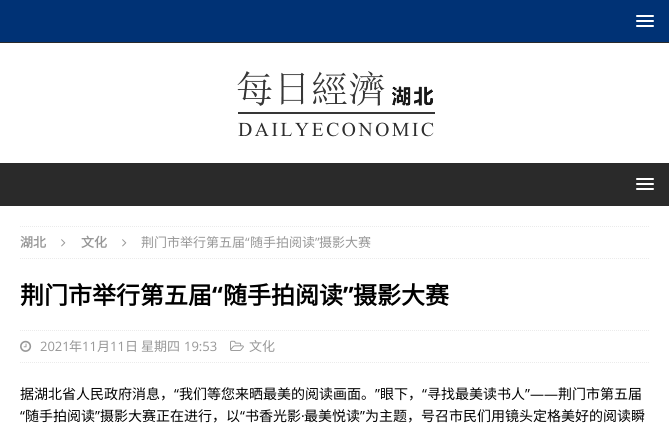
import math
import cairocffi as cairo

surface = cairo.ImageSurface(cairo.FORMAT_RGB24, 669, 442)
ctx = cairo.Context(surface)
options = cairo.FontOptions()
options.set_hint_metrics(cairo.HINT_METRICS_OFF)
options.set_hint_style(cairo.HINT_STYLE_NONE)
ctx.set_font_options(options)
ctx.set_miter_limit(4)


def rgb(r, g, b):
    ctx.set_source_rgb(r / 255, g / 255, b / 255)


def face(family, size, italic, bold):
    ctx.select_font_face(family, cairo.FONT_SLANT_ITALIC if italic else cairo.FONT_SLANT_NORMAL, cairo.FONT_WEIGHT_BOLD if bold else cairo.FONT_WEIGHT_NORMAL)
    ctx.set_font_size(size)


def label(x, y, s):
    ctx.move_to(x, y)
    ctx.show_text(s)


def rect(x, y, w, h):
    ctx.rectangle(x, y, w, h)
    ctx.fill()


def rrect(x, y, w, h, r):
    ctx.new_sub_path()
    for i, (u, v) in enumerate([(x + w - r, y + h - r), (x + r, y + h - r), (x + r, y + r), (x + w - r, y + r)]):
        ctx.arc(u, v, r, i * math.pi / 2, (i + 1) * math.pi / 2)
    ctx.close_path()


def image(path, x, y, w, h):
    ctx.save()
    ctx.set_source_surface(cairo.ImageSurface.create_from_png(path), x, y)
    ctx.rectangle(x, y, w, h)
    ctx.fill()
    ctx.restore()


rgb(255, 255, 255)
ctx.paint()
rgb(0, 50, 117)
rect(0, 0, 669, 42)
rgb(42, 42, 42)
rect(0, 42, 669, 1)
rgb(255, 255, 255)
rrect(636, 15, 18, 2, 1)
ctx.fill()
rrect(636, 20, 18, 2, 1)
ctx.fill()
rrect(636, 25, 18, 2, 1)
ctx.fill()
image('image0.png', 237, 71, 198, 66)
rgb(42, 42, 42)
rect(0, 163, 669, 43)
rgb(255, 255, 255)
rrect(636, 178, 18, 2, 1)
ctx.fill()
rrect(636, 183, 18, 2, 1)
ctx.fill()
rrect(636, 188, 18, 2, 1)
ctx.fill()
ctx.new_path()
ctx.move_to(20, 226.5)
ctx.line_to(649, 226.5)
rgb(235, 235, 235)
ctx.set_line_width(1)
ctx.set_dash([1, 1])
ctx.stroke()
ctx.new_path()
ctx.move_to(20, 258.5)
ctx.line_to(649, 258.5)
ctx.stroke()
face('Noto Sans CJK SC', 13, 0, 1)
rgb(151, 151, 151)
label(20, 247, '湖北')
image('image1.png', 61, 239, 5, 8)
label(81, 247, '文化')
image('image1.png', 122, 239, 5, 8)
face('Noto Sans CJK SC', 13, 0, 0)
label(141, 247, '荆门市举行第五届')
face('Open Sans', 13, 0, 0)
label(245, 247, '“')
face('Noto Sans CJK SC', 13, 0, 0)
label(250, 247, '随手拍阅读')
face('Open Sans', 13, 0, 0)
label(315, 247, '”')
face('Noto Sans CJK SC', 13, 0, 0)
label(319, 247, '摄影大赛')
face('Noto Sans CJK SC', 24, 0, 1)
rgb(0, 0, 0)
label(20, 304, '荆门市举行第五届')
face('Open Sans', 24, 0, 1)
label(212, 304, '“')
face('Noto Sans CJK SC', 24, 0, 1)
label(223, 304, '随手拍阅读')
face('Open Sans', 24, 0, 1)
label(343, 304, '”')
face('Noto Sans CJK SC', 24, 0, 1)
label(353, 304, '摄影大赛')
ctx.new_path()
ctx.move_to(20, 330.5)
ctx.line_to(649, 330.5)
rgb(235, 235, 235)
ctx.stroke()
ctx.new_path()
ctx.move_to(20, 362.5)
ctx.line_to(649, 362.5)
ctx.stroke()
image('image2.png', 20, 340, 12, 12)
face('Open Sans', 13, 0, 0)
rgb(151, 151, 151)
label(40, 351, '2021')
face('Noto Sans CJK SC', 13, 0, 0)
label(69, 351, '年')
face('Open Sans', 13, 0, 0)
label(82, 351, '11')
face('Noto Sans CJK SC', 13, 0, 0)
label(97, 351, '月')
face('Open Sans', 13, 0, 0)
label(110, 351, '11')
face('Noto Sans CJK SC', 13, 0, 0)
label(125, 351, '日 星期四')
face('Open Sans', 13, 0, 0)
label(184, 351, '19:53')
image('image3.png', 230, 340, 14, 11)
face('Noto Sans CJK SC', 13, 0, 0)
label(249, 351, '文化')
face('Noto Sans CJK SC', 14, 0, 0)
rgb(0, 0, 0)
label(20, 399, '据湖北省人民政府消息，')
face('Open Sans', 14, 0, 0)
label(174, 399, '“')
face('Noto Sans CJK SC', 14, 0, 0)
label(179, 399, '我们等您来晒最美的阅读画面。')
face('Open Sans', 14, 0, 0)
label(375, 399, '”')
face('Noto Sans CJK SC', 14, 0, 0)
label(380, 399, '眼下，')
face('Open Sans', 14, 0, 0)
label(422, 399, '“')
face('Noto Sans CJK SC', 14, 0, 0)
label(427, 399, '寻找最美读书人')
face('Open Sans', 14, 0, 0)
label(525, 399, '”——')
face('Noto Sans CJK SC', 14, 0, 0)
label(558, 399, '荆门市第五届')
face('Open Sans', 14, 0, 0)
label(20, 421, '“')
face('Noto Sans CJK SC', 14, 0, 0)
label(25, 421, '随手拍阅读')
face('Open Sans', 14, 0, 0)
label(95, 421, '”')
face('Noto Sans CJK SC', 14, 0, 0)
label(100, 421, '摄影大赛正在进行，以')
face('Open Sans', 14, 0, 0)
label(240, 421, '“')
face('Noto Sans CJK SC', 14, 0, 0)
label(245, 421, '书香光影')
label(304, 421, '最美悦读')
face('Open Sans', 14, 0, 0)
label(360, 421, '”')
face('Noto Sans CJK SC', 14, 0, 0)
label(365, 421, '为主题，号召市民们用镜头定格美好的阅读瞬')
face('Open Sans', 14, 0, 0)
label(301, 421, '·')
surface.write_to_png('render.png')
